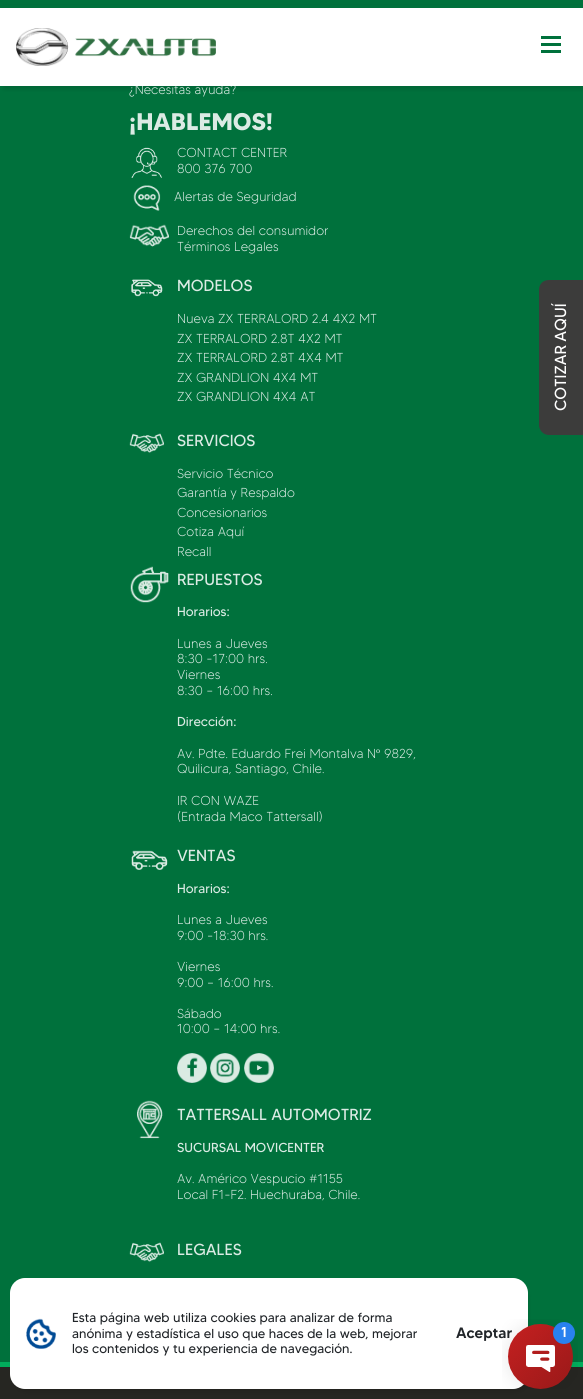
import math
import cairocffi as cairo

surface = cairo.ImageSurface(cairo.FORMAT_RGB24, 583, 1399)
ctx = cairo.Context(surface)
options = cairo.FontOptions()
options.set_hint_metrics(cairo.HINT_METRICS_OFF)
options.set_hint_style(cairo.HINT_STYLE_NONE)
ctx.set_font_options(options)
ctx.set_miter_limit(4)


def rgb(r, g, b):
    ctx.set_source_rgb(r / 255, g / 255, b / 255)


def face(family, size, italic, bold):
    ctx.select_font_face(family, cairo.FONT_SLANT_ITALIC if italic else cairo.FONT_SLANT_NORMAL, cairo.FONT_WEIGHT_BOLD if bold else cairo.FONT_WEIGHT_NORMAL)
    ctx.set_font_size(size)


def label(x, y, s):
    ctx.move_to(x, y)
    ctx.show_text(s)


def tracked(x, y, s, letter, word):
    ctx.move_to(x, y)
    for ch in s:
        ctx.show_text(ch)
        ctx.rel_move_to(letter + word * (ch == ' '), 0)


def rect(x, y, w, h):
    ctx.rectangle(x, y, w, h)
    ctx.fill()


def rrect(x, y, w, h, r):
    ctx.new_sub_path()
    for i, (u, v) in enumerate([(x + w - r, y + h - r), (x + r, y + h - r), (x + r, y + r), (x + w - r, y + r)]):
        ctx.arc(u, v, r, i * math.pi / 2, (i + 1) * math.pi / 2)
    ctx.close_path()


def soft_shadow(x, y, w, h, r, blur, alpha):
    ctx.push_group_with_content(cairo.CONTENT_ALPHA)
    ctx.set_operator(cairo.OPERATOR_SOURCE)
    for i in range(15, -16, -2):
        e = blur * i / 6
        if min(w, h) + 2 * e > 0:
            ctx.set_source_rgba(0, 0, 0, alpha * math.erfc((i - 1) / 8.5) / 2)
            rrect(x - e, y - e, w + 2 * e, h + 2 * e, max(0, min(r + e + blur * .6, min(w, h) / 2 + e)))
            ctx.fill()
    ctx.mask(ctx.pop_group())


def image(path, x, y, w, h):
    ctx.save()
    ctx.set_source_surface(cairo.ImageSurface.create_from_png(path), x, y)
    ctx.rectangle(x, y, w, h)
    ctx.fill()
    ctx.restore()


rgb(0, 113, 60)
ctx.paint()
rgb(0, 0, 0)
soft_shadow(4, 7, 579, 82, 0, 2.5, 0.11)
face('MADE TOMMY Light', 13, 0, 0)
rgb(219, 235, 228)
label(129, 94, '¿Necesitas ayuda?')
rgb(255, 255, 255)
rect(0, 8, 583, 78)
rgb(0, 113, 60)
rect(0, 5, 583, 3)
image('image0.png', 16, 28, 200, 38)
rect(541, 36, 20, 3)
rect(541, 43, 20, 3)
rect(541, 50, 20, 3)
face('MADE TOMMY', 24, 0, 1)
rgb(219, 235, 228)
label(129, 130, '¡HABLEMOS!')
image('image1.png', 131, 147, 31, 31)
face('MADE TOMMY Light', 13, 0, 0)
label(177, 157, 'CONTACT CENTER')
label(177, 173, '800 376 700')
image('image2.png', 133, 185, 28, 26)
label(174, 201, 'Alertas de Seguridad')
image('image3.png', 129, 224, 40, 23)
label(177, 235, 'Derechos del consumidor')
label(177, 251, 'Términos Legales')
image('image4.png', 131, 279, 32, 18)
face('MADE TOMMY', 16, 0, 0)
label(177, 291, 'MODELOS')
face('MADE TOMMY Light', 13, 0, 0)
label(177, 323, 'Nueva ZX TERRALORD 2.4 4X2 MT')
label(177, 343, 'ZX TERRALORD 2.8T 4X2 MT')
label(177, 362, 'ZX TERRALORD 2.8T 4X4 MT')
label(177, 382, 'ZX GRANDLION 4X4 MT')
label(177, 401, 'ZX GRANDLION 4X4 AT')
image('image5.png', 129, 433, 35, 20)
face('MADE TOMMY', 16, 0, 0)
label(177, 446, 'SERVICIOS')
face('MADE TOMMY Light', 13, 0, 0)
label(177, 478, 'Servicio Técnico')
label(177, 497, 'Garantía y Respaldo')
label(177, 517, 'Concesionarios')
label(177, 536, 'Cotiza Aquí')
label(177, 556, 'Recall')
image('image6.png', 130, 566, 39, 37)
face('MADE TOMMY', 16, 0, 0)
label(177, 585, 'REPUESTOS')
face('MADE TOMMY', 13, 0, 0)
label(177, 616, 'Horarios:')
face('MADE TOMMY Light', 13, 0, 0)
label(177, 648, 'Lunes a Jueves')
label(177, 663, '8:30 -17:00 hrs.')
label(177, 679, 'Viernes')
label(177, 695, '8:30 – 16:00 hrs.')
face('MADE TOMMY', 13, 0, 0)
label(177, 726, 'Dirección:')
face('MADE TOMMY Light', 13, 0, 0)
label(177, 758, 'Av. Pdte. Eduardo Frei Montalva N')
face('Liberation Serif', 13, 0, 0)
label(376, 758, 'º')
face('MADE TOMMY Light', 13, 0, 0)
label(384, 758, '9829,')
label(177, 773, 'Quilicura, Santiago, Chile.')
label(177, 805, 'IR CON WAZE')
label(177, 821, '(Entrada Maco Tattersall)')
image('image7.png', 131, 850, 37, 20)
face('MADE TOMMY', 16, 0, 0)
label(177, 861, 'VENTAS')
face('MADE TOMMY', 13, 0, 0)
label(177, 893, 'Horarios:')
face('MADE TOMMY Light', 13, 0, 0)
label(177, 924, 'Lunes a Jueves')
label(177, 940, '9:00 -18:30 hrs.')
label(177, 971, 'Viernes')
label(177, 987, '9:00 – 16:00 hrs.')
label(177, 1018, 'Sábado')
label(177, 1033, '10:00 – 14:00 hrs.')
image('image8.png', 177, 1053, 30, 30)
image('image9.png', 210, 1053, 30, 30)
image('image10.png', 244, 1053, 30, 30)
image('image11.png', 137, 1100, 26, 39)
face('MADE TOMMY', 16, 0, 0)
label(177, 1120, 'TATTERSALL AUTOMOTRIZ')
face('MADE TOMMY', 13, 0, 0)
label(177, 1152, 'SUCURSAL MOVICENTER')
face('MADE TOMMY Light', 13, 0, 0)
label(177, 1183, 'Av. Américo Vespucio #1155')
label(177, 1199, 'Local F1-F2. Huechuraba, Chile.')
image('image5.png', 129, 1242, 35, 20)
face('MADE TOMMY', 16, 0, 0)
label(177, 1255, 'LEGALES')
rgb(38, 38, 34)
rect(0, 1367, 583, 32)
rgb(1, 173, 92)
rect(0, 1362, 583, 5)
rgb(60, 60, 59)
ctx.new_path()
ctx.move_to(583, 435)
ctx.line_to(549, 435)
ctx.curve_to(543, 435, 539, 430, 539, 425)
ctx.line_to(539, 290)
ctx.curve_to(539, 284, 543, 280, 549, 280)
ctx.line_to(583, 280)
ctx.close_path()
ctx.fill()
rgb(255, 255, 255)
ctx.save()
ctx.translate(566, 411)
ctx.rotate(-90 * math.pi / 180)
tracked(0, 0, 'COTIZAR AQUÍ', 0, -1)
ctx.restore()
rgb(0, 0, 0)
soft_shadow(14, 1285, 514, 107, 13, 2.5, 0.11)
rgb(255, 255, 255)
rrect(10, 1278, 518, 111, 15)
ctx.fill()
image('image12.png', 26, 1318, 30, 31)
face('MADE TOMMY', 13, 0, 0)
rgb(33, 37, 41)
label(72, 1322, 'Esta página web utiliza cookies para analizar de forma')
label(72, 1338, 'anónima y estadística el uso que haces de la web, mejorar')
label(72, 1353, 'los contenidos y tu experiencia de navegación.')
face('MADE TOMMY Medium', 15, 0, 0)
label(456, 1338, 'Aceptar')
image('image13.png', 502, 1319, 76, 70)
surface.write_to_png('render.png')
